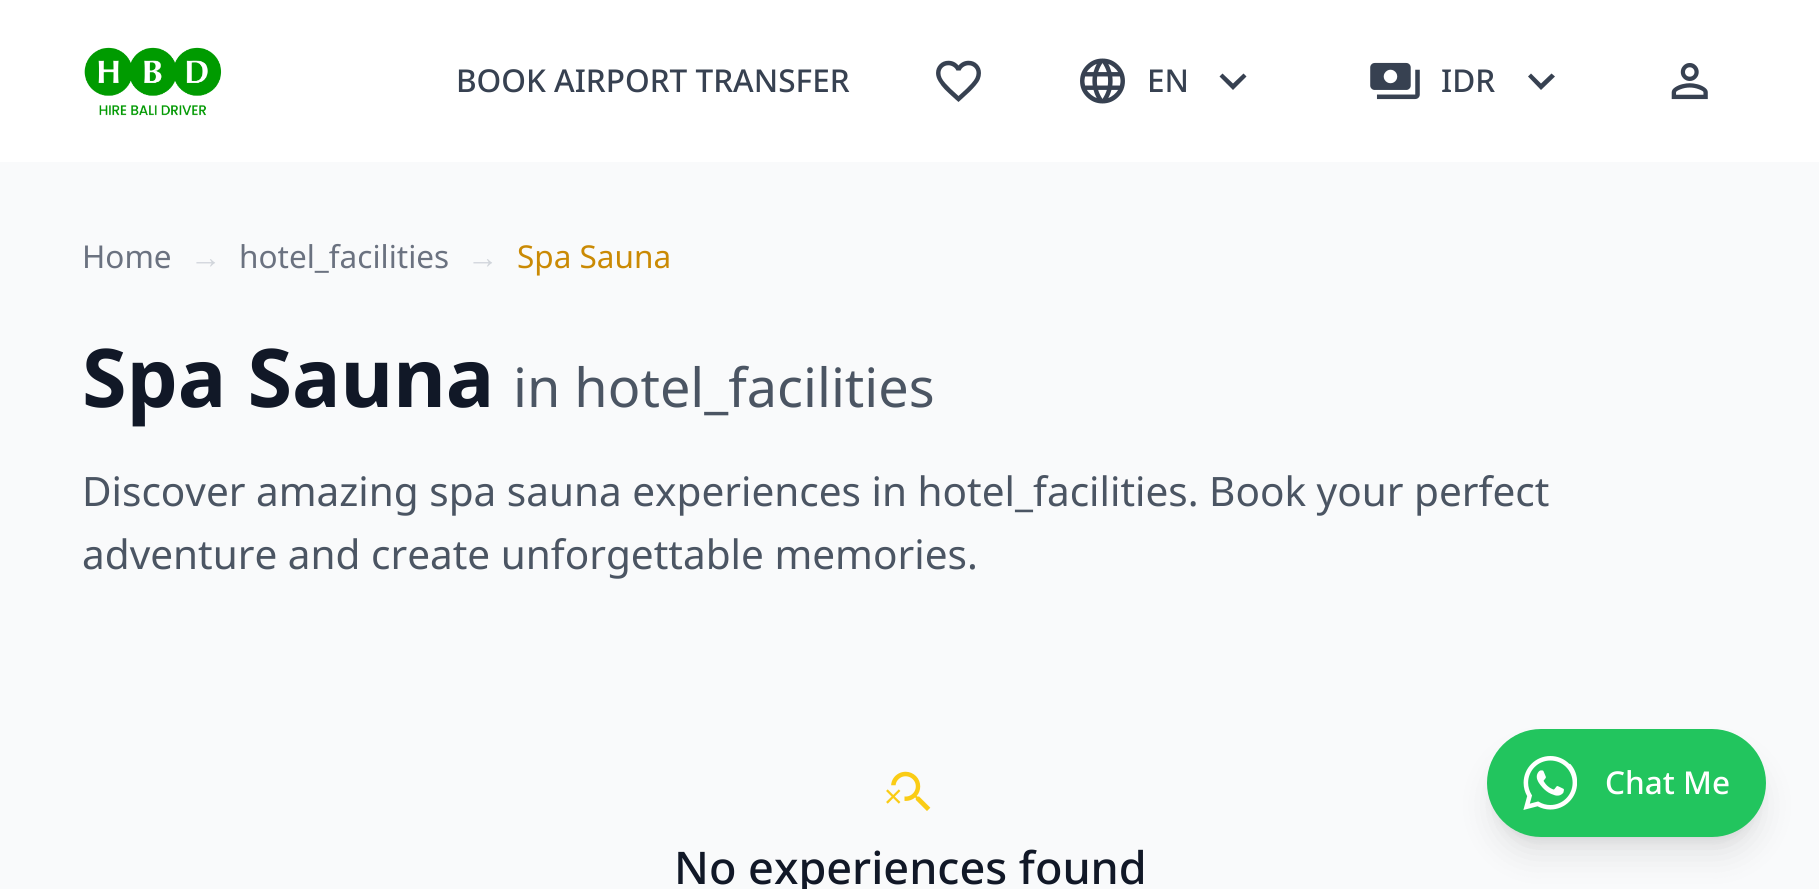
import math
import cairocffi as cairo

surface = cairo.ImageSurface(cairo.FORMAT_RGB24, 1819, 889)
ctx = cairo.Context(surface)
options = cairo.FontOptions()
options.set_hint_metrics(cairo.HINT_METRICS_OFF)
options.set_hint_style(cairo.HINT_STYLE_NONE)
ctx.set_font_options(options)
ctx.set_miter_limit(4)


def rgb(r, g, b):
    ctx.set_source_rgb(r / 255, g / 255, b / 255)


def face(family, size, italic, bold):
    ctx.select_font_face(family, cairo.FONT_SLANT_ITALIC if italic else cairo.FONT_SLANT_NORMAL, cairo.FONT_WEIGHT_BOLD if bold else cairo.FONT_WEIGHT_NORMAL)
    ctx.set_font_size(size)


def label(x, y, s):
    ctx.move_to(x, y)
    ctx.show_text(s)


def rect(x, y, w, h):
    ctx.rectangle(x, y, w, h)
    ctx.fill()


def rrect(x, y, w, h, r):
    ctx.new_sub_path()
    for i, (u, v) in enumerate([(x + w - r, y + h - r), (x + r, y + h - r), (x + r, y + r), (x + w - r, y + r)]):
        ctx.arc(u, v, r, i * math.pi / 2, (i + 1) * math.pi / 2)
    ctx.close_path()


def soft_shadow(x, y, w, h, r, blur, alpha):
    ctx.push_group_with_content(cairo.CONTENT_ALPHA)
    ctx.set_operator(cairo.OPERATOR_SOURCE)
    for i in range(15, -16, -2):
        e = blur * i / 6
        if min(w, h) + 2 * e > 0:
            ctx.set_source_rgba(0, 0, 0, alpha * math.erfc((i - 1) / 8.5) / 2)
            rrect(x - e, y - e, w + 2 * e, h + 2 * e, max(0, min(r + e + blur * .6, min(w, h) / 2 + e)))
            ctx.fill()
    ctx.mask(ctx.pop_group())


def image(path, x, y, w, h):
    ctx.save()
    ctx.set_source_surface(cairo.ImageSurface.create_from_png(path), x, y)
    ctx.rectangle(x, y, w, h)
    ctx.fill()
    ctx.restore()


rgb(255, 255, 255)
ctx.paint()
image('image0.png', 84, 47, 138, 69)
face('Noto Sans Medium', 31.5, 0, 0)
rgb(55, 65, 81)
label(456, 92, 'BOOK AIRPORT TRANSFER')
image('image1.png', 936, 60, 45, 42)
image('image2.png', 1080, 58, 45, 46)
label(1147, 92, 'EN')
ctx.new_path()
ctx.move_to(1243.5, 73.5)
ctx.line_to(1246.5, 76.5)
ctx.line_to(1233, 90)
ctx.line_to(1219.5, 76.5)
ctx.line_to(1222.5, 73.5)
ctx.line_to(1233, 83.5)
ctx.close_path()
ctx.fill()
image('image3.png', 1370, 62, 50, 38)
label(1441, 92, 'IDR')
ctx.new_path()
ctx.move_to(1551.5, 73.5)
ctx.line_to(1555, 76.5)
ctx.line_to(1541, 90)
ctx.line_to(1528, 76.5)
ctx.line_to(1531, 73.5)
ctx.line_to(1541, 83.5)
ctx.close_path()
ctx.fill()
image('image4.png', 1671, 63, 37, 37)
rgb(249, 250, 251)
rect(0, 162, 1819, 727)
face('Noto Sans', 31.5, 0, 0)
rgb(107, 114, 128)
label(82, 268, 'Home')
face('Liberation Sans', 31.5, 0, 0)
rgb(209, 213, 219)
label(190, 268, '→')
face('Noto Sans', 31.5, 0, 0)
rgb(107, 114, 128)
label(239, 268, 'hotel_facilities')
face('Liberation Sans', 31.5, 0, 0)
rgb(209, 213, 219)
label(467, 268, '→')
face('Noto Sans', 31.5, 0, 0)
rgb(202, 138, 4)
label(517, 268, 'Spa Sauna')
face('Noto Sans', 81, 0, 1)
rgb(17, 24, 39)
label(82, 407, 'Spa Sauna')
face('Noto Sans', 54, 0, 0)
rgb(75, 85, 99)
label(513, 407, 'in hotel_facilities')
face('Noto Sans', 40.5, 0, 0)
label(82, 506, 'Discover amazing spa sauna experiences in hotel_facilities. Book your perfect')
label(82, 569, 'adventure and create unforgettable memories.')
image('image5.png', 886, 771, 45, 40)
face('Noto Sans Medium', 45, 0, 0)
rgb(17, 24, 39)
label(674, 884, 'No experiences found')
rgb(0, 0, 0)
soft_shadow(1496, 747, 261, 90, 45, 7, 0.1)
soft_shadow(1494, 758, 266, 95, 47.5, 17, 0.1)
rgb(34, 197, 94)
rrect(1487, 729, 279, 108, 54)
ctx.fill()
image('image6.png', 1523, 756, 54, 54)
face('Noto Sans Medium', 31.5, 0, 0)
rgb(255, 255, 255)
label(1605, 794, 'Chat Me')
surface.write_to_png('render.png')
